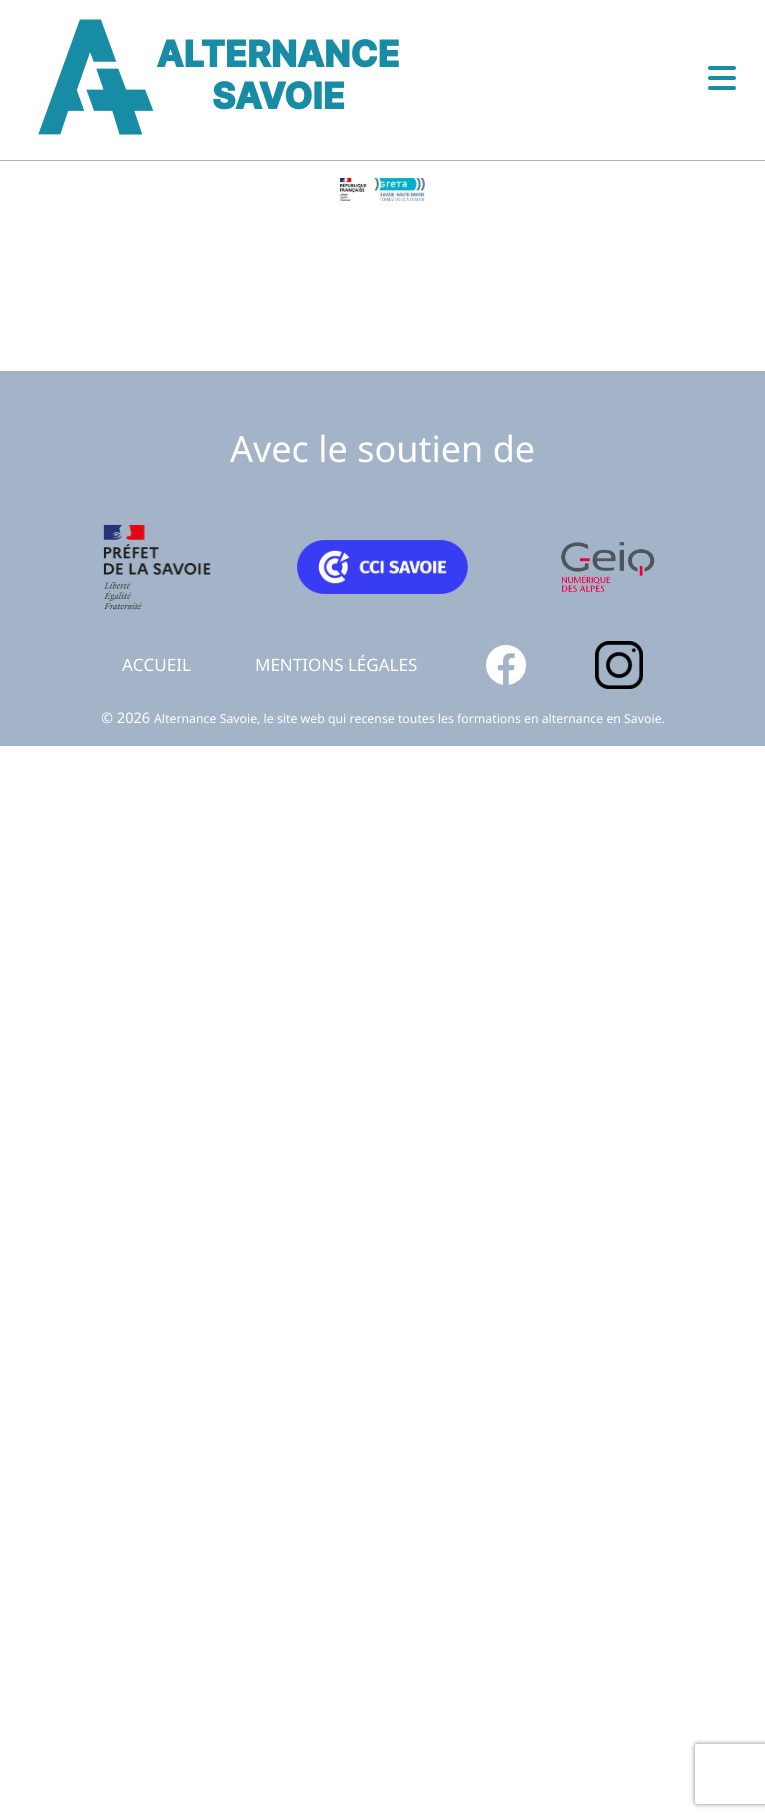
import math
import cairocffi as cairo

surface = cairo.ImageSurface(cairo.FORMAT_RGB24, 765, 1818)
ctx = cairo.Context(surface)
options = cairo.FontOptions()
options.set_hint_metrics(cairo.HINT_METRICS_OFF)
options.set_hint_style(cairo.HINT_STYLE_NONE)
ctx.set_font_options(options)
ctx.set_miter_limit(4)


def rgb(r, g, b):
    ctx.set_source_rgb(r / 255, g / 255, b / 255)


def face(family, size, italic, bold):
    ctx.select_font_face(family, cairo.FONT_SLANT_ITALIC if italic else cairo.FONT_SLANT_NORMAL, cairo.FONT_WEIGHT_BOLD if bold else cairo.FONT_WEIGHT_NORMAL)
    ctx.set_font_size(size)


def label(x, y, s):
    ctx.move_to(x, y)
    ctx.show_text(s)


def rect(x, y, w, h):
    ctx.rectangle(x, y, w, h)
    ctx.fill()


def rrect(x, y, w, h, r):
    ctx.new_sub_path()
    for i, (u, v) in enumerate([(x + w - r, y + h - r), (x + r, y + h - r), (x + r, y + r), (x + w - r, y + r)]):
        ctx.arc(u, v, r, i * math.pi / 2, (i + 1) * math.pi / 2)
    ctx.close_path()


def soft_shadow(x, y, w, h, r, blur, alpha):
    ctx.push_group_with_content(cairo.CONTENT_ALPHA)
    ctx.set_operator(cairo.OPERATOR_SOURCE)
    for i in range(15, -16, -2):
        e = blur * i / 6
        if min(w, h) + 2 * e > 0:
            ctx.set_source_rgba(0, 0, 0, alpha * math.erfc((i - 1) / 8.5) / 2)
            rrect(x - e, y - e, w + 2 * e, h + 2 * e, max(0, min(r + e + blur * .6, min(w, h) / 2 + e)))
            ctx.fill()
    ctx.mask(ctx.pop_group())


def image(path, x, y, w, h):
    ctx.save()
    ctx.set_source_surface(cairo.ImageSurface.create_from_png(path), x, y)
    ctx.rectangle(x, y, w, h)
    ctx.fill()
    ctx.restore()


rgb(255, 255, 255)
ctx.paint()
rgb(163, 180, 200)
rect(0, 160, 765, 1)
image('image0.png', 38, 19, 361, 116)
image('image1.png', 708, 66, 28, 24)
image('image2.png', 340, 178, 85, 23)
rect(0, 371, 765, 375)
face('Noto Sans', 36, 0, 0)
rgb(255, 255, 255)
label(230, 462, 'Avec le soutien de')
image('image3.png', 103, 524, 108, 86)
image('image4.png', 297, 540, 171, 54)
image('image5.png', 561, 542, 94, 50)
face('Noto Sans', 17, 0, 0)
label(122, 671, 'ACCUEIL')
label(255, 671, 'MENTIONS LÉGALES')
image('image6.png', 486, 645, 40, 40)
image('image7.png', 595, 641, 48, 48)
face('Noto Sans', 14.5, 0, 0)
label(101, 723, '© 2026')
face('Noto Sans', 12.3, 0, 0)
label(154, 723, 'Alternance Savoie, le site web qui recense toutes les formations en alternance en Savoie.')
ctx.save()
ctx.set_fill_rule(cairo.FILL_RULE_EVEN_ODD)
ctx.new_path()
ctx.move_to(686, 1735)
ctx.line_to(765, 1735)
ctx.line_to(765, 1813)
ctx.line_to(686, 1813)
ctx.close_path()
ctx.move_to(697, 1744)
ctx.line_to(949, 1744)
ctx.curve_to(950, 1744, 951, 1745, 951, 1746)
ctx.line_to(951, 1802)
ctx.curve_to(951, 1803, 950, 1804, 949, 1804)
ctx.line_to(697, 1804)
ctx.curve_to(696, 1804, 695, 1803, 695, 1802)
ctx.line_to(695, 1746)
ctx.curve_to(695, 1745, 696, 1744, 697, 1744)
ctx.close_path()
ctx.clip()
rgb(128, 128, 128)
soft_shadow(695, 1744, 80, 60, 2, 2.5, 1)
ctx.restore()
surface.write_to_png('render.png')
